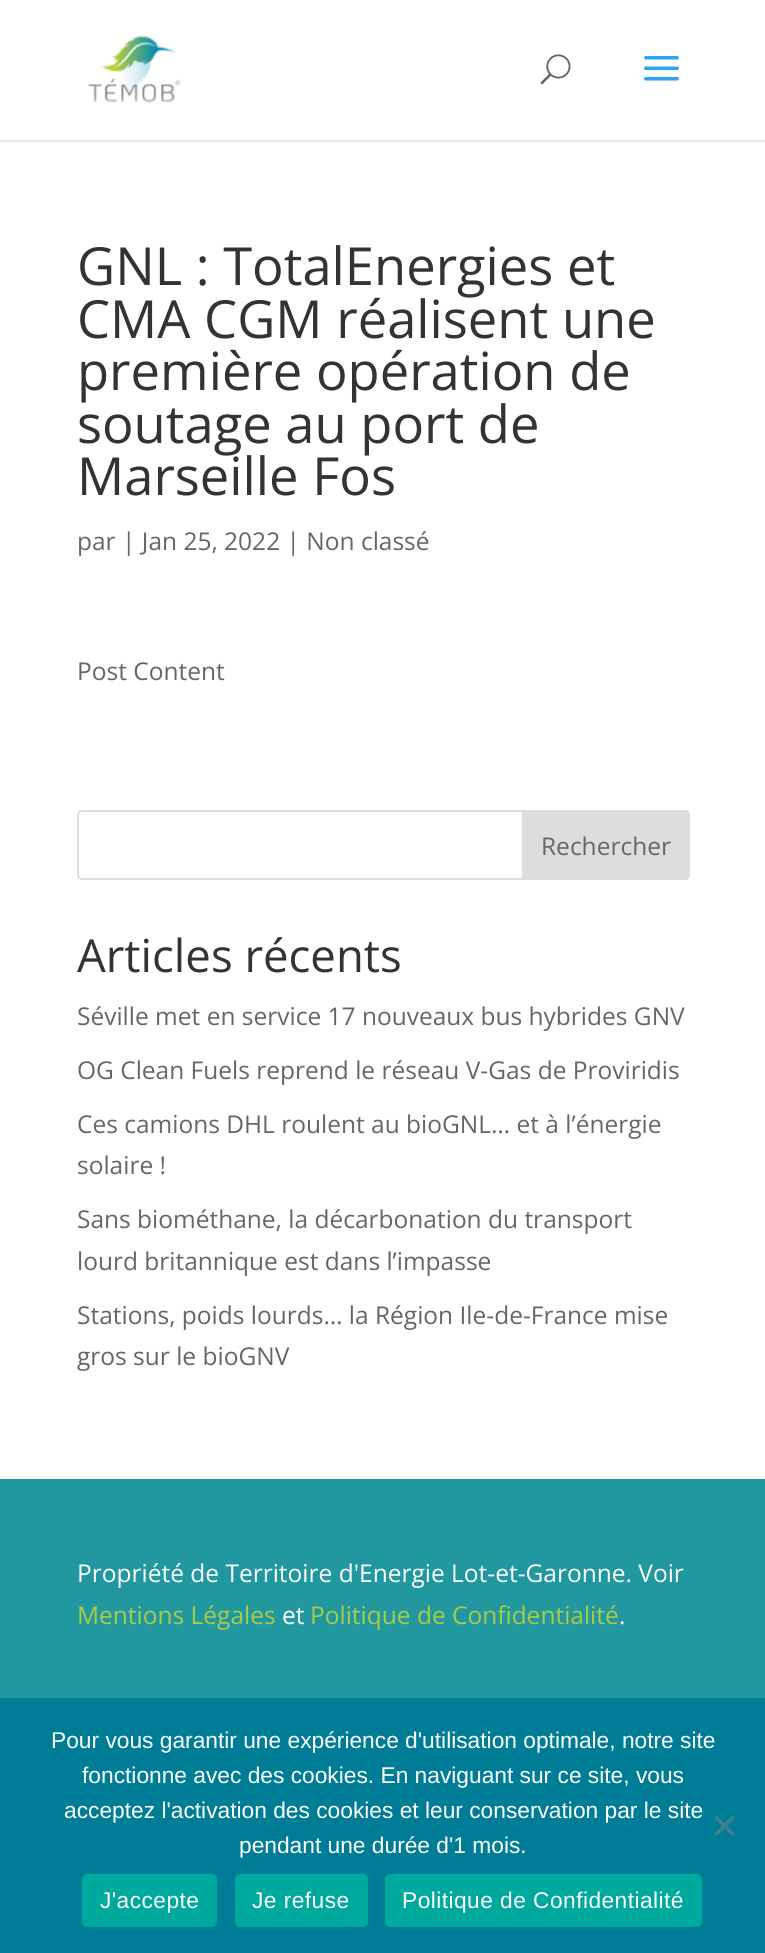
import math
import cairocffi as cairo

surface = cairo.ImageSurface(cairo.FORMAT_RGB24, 765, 1953)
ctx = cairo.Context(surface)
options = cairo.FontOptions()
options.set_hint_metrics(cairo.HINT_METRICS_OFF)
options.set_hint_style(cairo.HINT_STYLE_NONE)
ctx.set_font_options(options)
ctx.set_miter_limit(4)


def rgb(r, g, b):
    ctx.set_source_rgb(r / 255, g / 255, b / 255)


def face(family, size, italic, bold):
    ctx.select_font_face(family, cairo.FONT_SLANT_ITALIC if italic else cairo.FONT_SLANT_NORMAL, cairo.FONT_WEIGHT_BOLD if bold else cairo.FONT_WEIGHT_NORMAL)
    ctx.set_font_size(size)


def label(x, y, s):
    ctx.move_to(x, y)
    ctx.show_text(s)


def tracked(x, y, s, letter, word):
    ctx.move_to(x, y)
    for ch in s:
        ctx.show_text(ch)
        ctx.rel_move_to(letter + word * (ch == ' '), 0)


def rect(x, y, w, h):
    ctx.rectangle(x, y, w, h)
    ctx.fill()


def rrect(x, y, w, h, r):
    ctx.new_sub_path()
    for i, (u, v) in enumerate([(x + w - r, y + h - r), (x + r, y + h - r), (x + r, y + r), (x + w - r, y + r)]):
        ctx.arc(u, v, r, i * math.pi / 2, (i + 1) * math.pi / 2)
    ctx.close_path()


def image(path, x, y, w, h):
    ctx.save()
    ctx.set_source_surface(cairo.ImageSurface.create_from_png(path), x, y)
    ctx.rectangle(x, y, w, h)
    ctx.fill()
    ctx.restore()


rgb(255, 255, 255)
ctx.paint()
rgb(230, 230, 230)
ctx.new_path()
ctx.move_to(0, 140)
ctx.line_to(0, 142)
ctx.line_to(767, 142)
ctx.line_to(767, 2)
ctx.line_to(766, 2)
ctx.line_to(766, 140)
ctx.close_path()
ctx.fill()
image('image0.png', 88, 35, 93, 68)
image('image1.png', 540, 54, 31, 31)
image('image2.png', 644, 56, 35, 25)
face('Open Sans', 52.5, 0, 0)
rgb(51, 51, 51)
label(77, 285, 'GNL : TotalEnergies et')
label(77, 338, 'CMA CGM réalisent une')
label(77, 390, 'première opération de')
label(77, 443, 'soutage au port de')
label(77, 495, 'Marseille Fos')
face('Open Sans', 24.5, 0, 0)
rgb(102, 102, 102)
label(77, 550, 'par | Jan 25, 2022 | Non classé')
label(77, 680, 'Post Content')
rrect(78, 811, 611, 68, 4)
rgb(221, 221, 221)
ctx.stroke()
ctx.new_path()
ctx.move_to(523, 811)
ctx.line_to(685, 811)
ctx.curve_to(687, 811, 689, 813, 689, 815)
ctx.line_to(689, 875)
ctx.curve_to(689, 877, 687, 879, 685, 879)
ctx.line_to(523, 879)
ctx.close_path()
ctx.fill_preserve()
ctx.stroke()
rgb(102, 102, 102)
label(541, 855, 'Rechercher')
face('Open Sans', 45.5, 0, 0)
rgb(51, 51, 51)
label(77, 972, 'Articles récents')
face('Open Sans', 24.5, 0, 0)
rgb(102, 102, 102)
label(77, 1025, 'Séville met en service 17 nouveaux bus hybrides GNV')
label(77, 1079, 'OG Clean Fuels reprend le réseau V-Gas de Proviridis')
label(77, 1133, 'Ces camions DHL roulent au bioGNL… et à l’énergie')
label(77, 1174, 'solaire !')
label(77, 1228, 'Sans biométhane, la décarbonation du transport')
label(77, 1270, 'lourd britannique est dans l’impasse')
label(77, 1324, 'Stations, poids lourds… la Région Ile-de-France mise')
label(77, 1365, 'gros sur le bioGNV')
rgb(33, 151, 160)
rect(0, 1479, 765, 219)
rgb(255, 255, 255)
label(77, 1582, 'Propriété de Territoire d\'Energie Lot-et-Garonne. Voir')
rgb(170, 203, 72)
label(77, 1624, 'Mentions Légales')
rgb(255, 255, 255)
label(282, 1624, 'et')
rgb(170, 203, 72)
label(310, 1624, 'Politique de Confidentialité')
rgb(255, 255, 255)
label(619, 1624, '.')
rgb(0, 125, 150)
rect(0, 1698, 765, 255)
face('Liberation Sans', 22.75, 0, 0)
rgb(255, 255, 255)
label(51, 1748, 'Pour vous garantir une expérience d\'utilisation optimale, notre site')
label(82, 1783, 'fonctionne avec des cookies. En naviguant sur ce site, vous')
label(64, 1818, 'acceptez l\'activation des cookies et leur conservation par le site')
label(239, 1853, 'pendant une durée d\'1 mois.')
rgb(64, 127, 139)
ctx.new_path()
ctx.move_to(732.5, 1815.5)
ctx.line_to(735, 1818)
ctx.line_to(716.5, 1836.5)
ctx.line_to(714, 1834)
ctx.close_path()
ctx.fill()
ctx.new_path()
ctx.move_to(714, 1818)
ctx.line_to(716.5, 1815.5)
ctx.line_to(735, 1834)
ctx.line_to(732.5, 1836.5)
ctx.close_path()
ctx.fill()
rgb(0, 169, 157)
rrect(82, 1874, 135, 53, 5)
ctx.fill()
rgb(255, 255, 255)
tracked(100, 1908, 'J\'accepte', 0.45, 0)
rgb(0, 169, 157)
rrect(235, 1874, 133, 53, 5)
ctx.fill()
rgb(255, 255, 255)
tracked(252, 1908, 'Je refuse', 0.45, 0)
rgb(0, 169, 157)
rrect(385, 1874, 317, 53, 5)
ctx.fill()
rgb(255, 255, 255)
tracked(402, 1908, 'Politique de Confidentialité', 0.45, 0)
surface.write_to_png('render.png')
